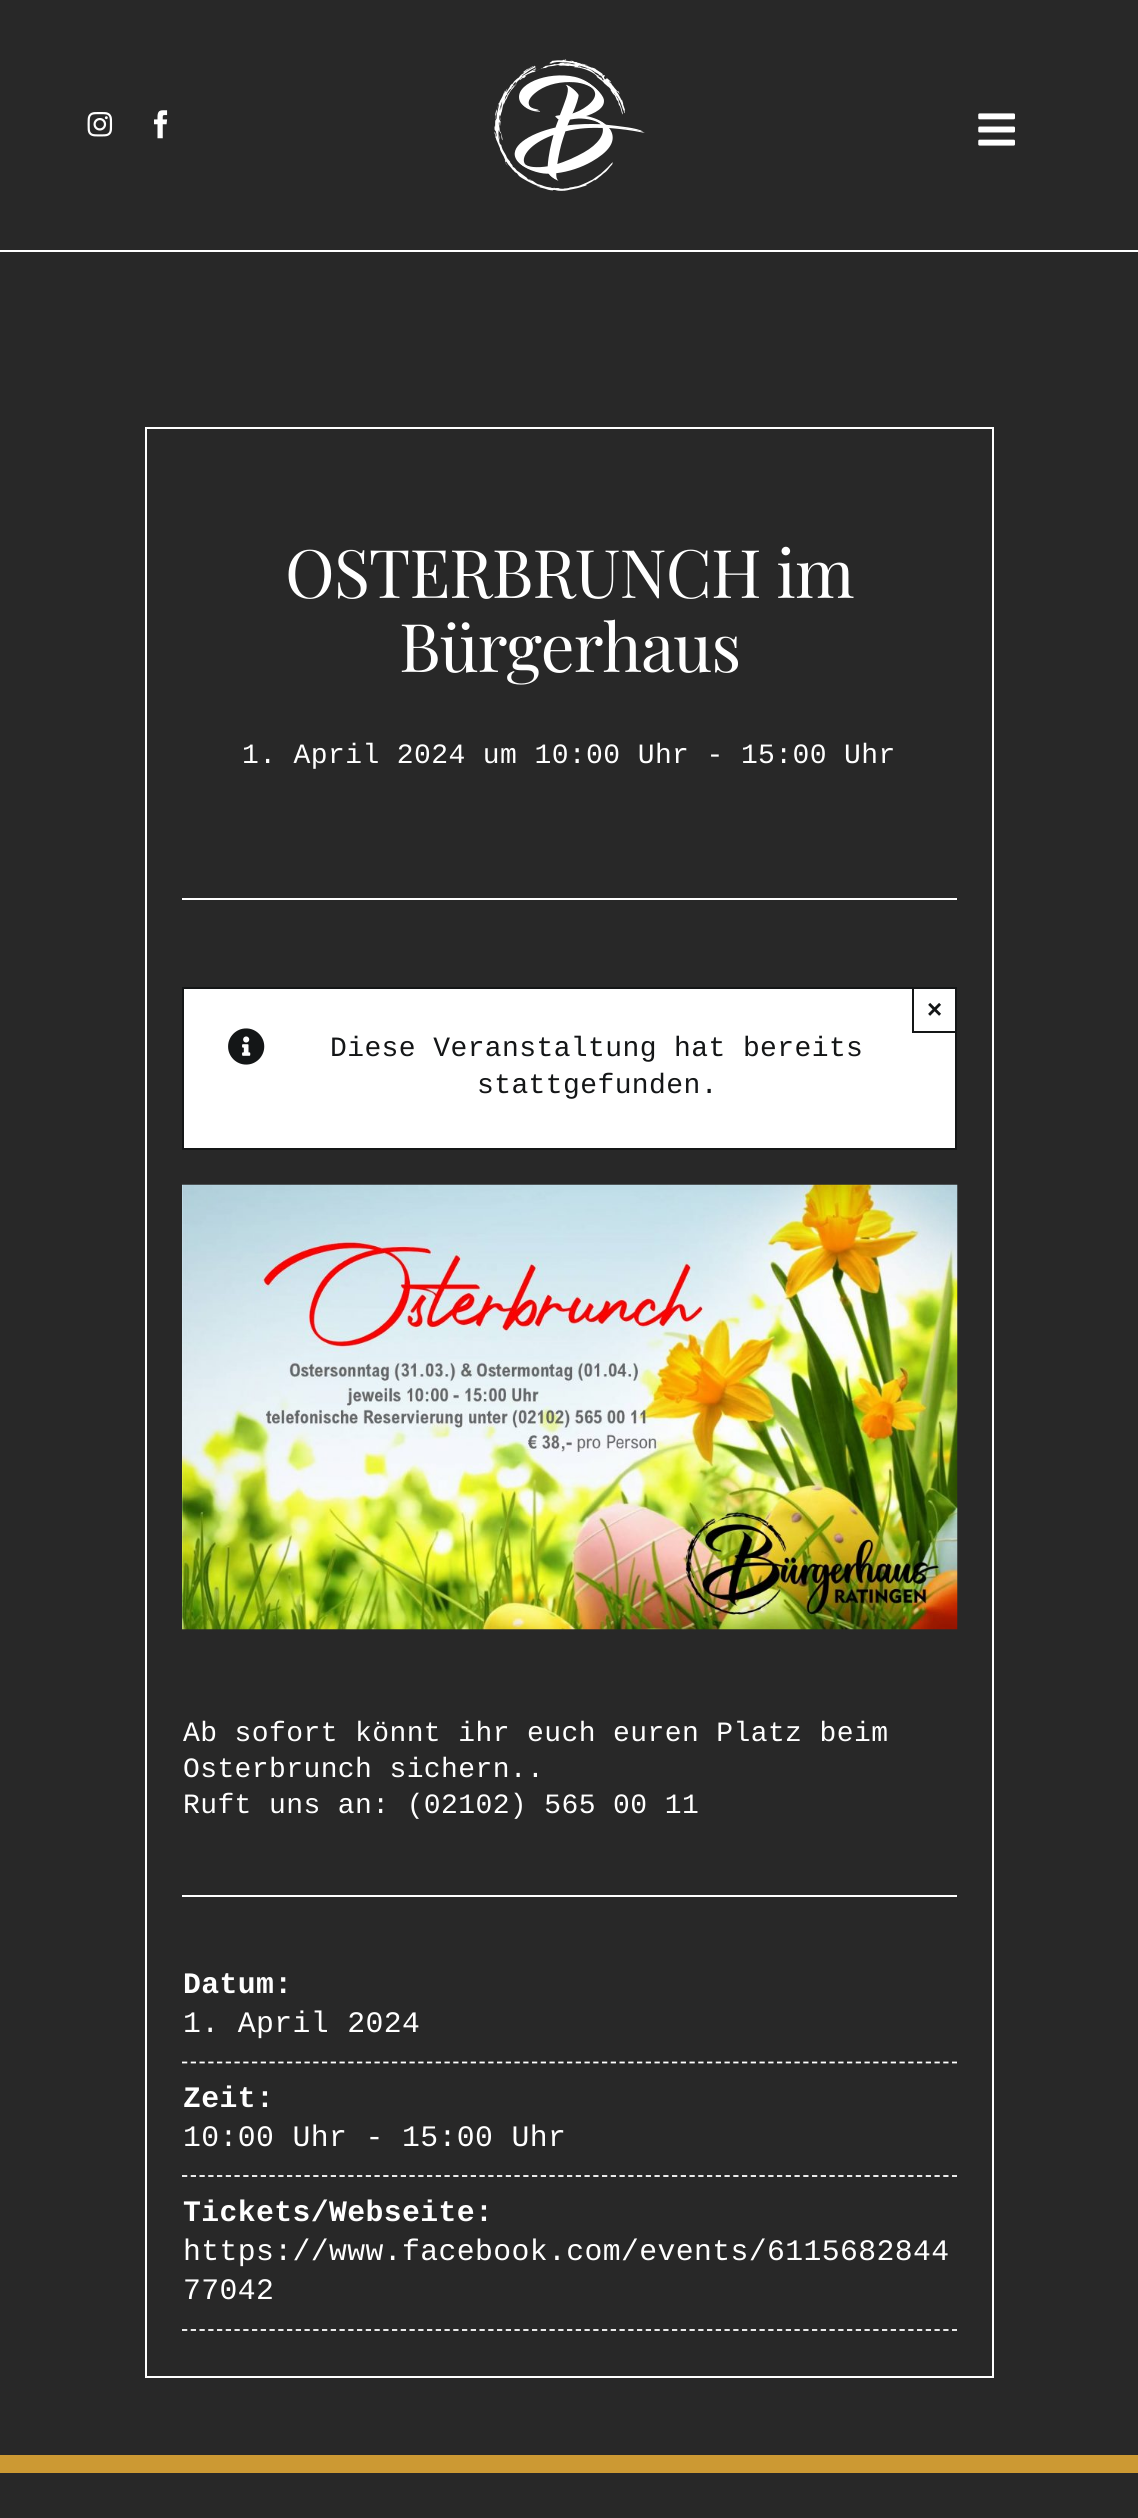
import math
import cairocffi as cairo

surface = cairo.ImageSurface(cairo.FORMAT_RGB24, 1138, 2518)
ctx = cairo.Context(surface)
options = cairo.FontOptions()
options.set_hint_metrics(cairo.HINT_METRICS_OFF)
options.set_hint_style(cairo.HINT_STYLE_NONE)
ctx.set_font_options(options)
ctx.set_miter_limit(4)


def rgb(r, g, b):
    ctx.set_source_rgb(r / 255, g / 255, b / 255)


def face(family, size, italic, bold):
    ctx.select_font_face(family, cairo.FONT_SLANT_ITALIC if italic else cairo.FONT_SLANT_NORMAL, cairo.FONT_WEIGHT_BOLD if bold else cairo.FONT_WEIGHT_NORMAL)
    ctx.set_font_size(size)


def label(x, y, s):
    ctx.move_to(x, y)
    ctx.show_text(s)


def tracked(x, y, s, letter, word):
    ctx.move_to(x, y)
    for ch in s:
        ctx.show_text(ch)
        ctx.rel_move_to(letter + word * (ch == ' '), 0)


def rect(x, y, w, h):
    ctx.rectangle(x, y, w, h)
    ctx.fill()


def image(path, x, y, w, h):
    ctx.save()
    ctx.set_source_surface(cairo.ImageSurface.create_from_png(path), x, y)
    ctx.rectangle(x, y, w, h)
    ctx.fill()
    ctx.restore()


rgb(40, 40, 40)
ctx.paint()
rgb(255, 255, 255)
rect(0, 250, 1138, 2)
image('image0.png', 87, 112, 26, 25)
image('image1.png', 154, 110, 14, 29)
image('image2.png', 494, 59, 151, 132)
image('image3.png', 978, 113, 37, 33)
ctx.rectangle(146, 428, 847, 1949)
ctx.stroke()
face('Playfair Display', 67, 0, 0)
tracked(285, 598, 'OSTERBRUNCH im', -1, 0)
tracked(399, 672, 'Bürgerhaus', -1, 0)
face('Liberation Mono', 28, 0, 0)
tracked(242, 763, '1. April 2024 um 10:00 Uhr - 15:00 Uhr', 0.4, 0)
rect(182, 898, 775, 2)
ctx.rectangle(183, 988, 773, 161)
ctx.fill_preserve()
rgb(20, 22, 23)
ctx.stroke()
rect(912, 1031, 45, 2)
rect(912, 987, 2, 46)
face('Liberation Sans', 26, 0, 1)
label(927, 1018, '×')
image('image4.png', 228, 1028, 37, 37)
face('Liberation Mono', 28, 0, 0)
tracked(330, 1056, 'Diese Veranstaltung hat bereits', 0.4, 0)
tracked(477, 1093, 'stattgefunden.', 0.4, 0)
image('image5.png', 182, 1184, 776, 446)
rgb(255, 255, 255)
tracked(183, 1741, 'Ab sofort könnt ihr euch euren Platz beim', 0.4, 0)
tracked(183, 1777, 'Osterbrunch sichern..', 0.4, 0)
tracked(183, 1813, 'Ruft uns an: (02102) 565 00 11', 0.4, 0)
rect(182, 1895, 775, 2)
face('Liberation Mono', 29.75, 0, 1)
tracked(183, 1993, 'Datum:', 0.4, 0)
ctx.new_path()
ctx.move_to(182, 2062.5)
ctx.line_to(957, 2062.5)
ctx.set_line_width(1.8)
ctx.set_dash([5.25, 3.5])
ctx.stroke()
face('Liberation Mono', 29.75, 0, 0)
tracked(183, 2032, '1. April 2024', 0.4, 0)
face('Liberation Mono', 29.75, 0, 1)
tracked(183, 2107, 'Zeit:', 0.4, 0)
ctx.new_path()
ctx.move_to(182, 2176)
ctx.line_to(957, 2176)
ctx.stroke()
face('Liberation Mono', 29.75, 0, 0)
tracked(183, 2146, '10:00 Uhr - 15:00 Uhr', 0.4, 0)
face('Liberation Mono', 29.75, 0, 1)
tracked(183, 2221, 'Tickets/Webseite:', 0.4, 0)
ctx.new_path()
ctx.move_to(182, 2330)
ctx.line_to(957, 2330)
ctx.stroke()
face('Liberation Mono', 29.75, 0, 0)
tracked(183, 2260, 'https://www.facebook.com/events/6115682844', 0.4, 0)
tracked(183, 2299, '77042', 0.4, 0)
rgb(204, 153, 51)
rect(0, 2455, 1138, 18)
surface.write_to_png('render.png')
